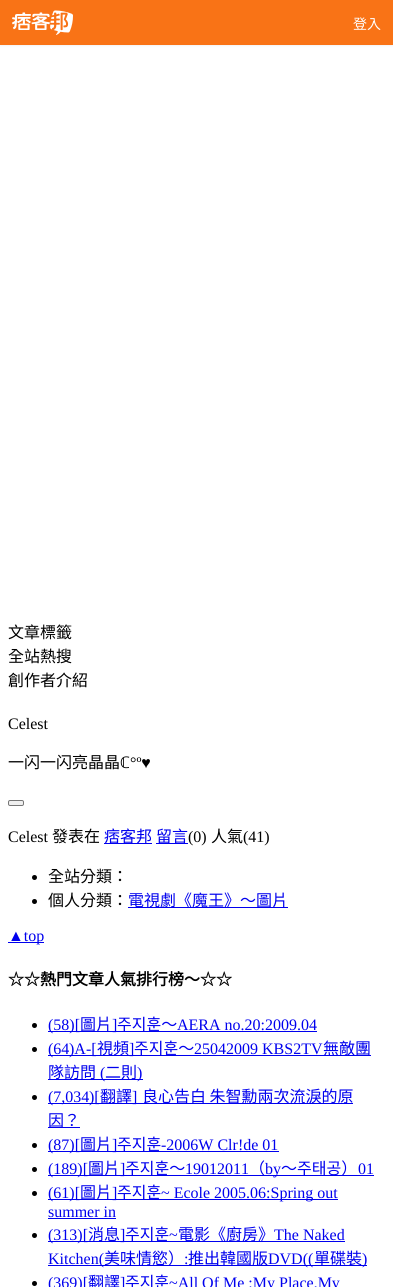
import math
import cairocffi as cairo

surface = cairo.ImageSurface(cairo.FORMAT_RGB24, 393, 1287)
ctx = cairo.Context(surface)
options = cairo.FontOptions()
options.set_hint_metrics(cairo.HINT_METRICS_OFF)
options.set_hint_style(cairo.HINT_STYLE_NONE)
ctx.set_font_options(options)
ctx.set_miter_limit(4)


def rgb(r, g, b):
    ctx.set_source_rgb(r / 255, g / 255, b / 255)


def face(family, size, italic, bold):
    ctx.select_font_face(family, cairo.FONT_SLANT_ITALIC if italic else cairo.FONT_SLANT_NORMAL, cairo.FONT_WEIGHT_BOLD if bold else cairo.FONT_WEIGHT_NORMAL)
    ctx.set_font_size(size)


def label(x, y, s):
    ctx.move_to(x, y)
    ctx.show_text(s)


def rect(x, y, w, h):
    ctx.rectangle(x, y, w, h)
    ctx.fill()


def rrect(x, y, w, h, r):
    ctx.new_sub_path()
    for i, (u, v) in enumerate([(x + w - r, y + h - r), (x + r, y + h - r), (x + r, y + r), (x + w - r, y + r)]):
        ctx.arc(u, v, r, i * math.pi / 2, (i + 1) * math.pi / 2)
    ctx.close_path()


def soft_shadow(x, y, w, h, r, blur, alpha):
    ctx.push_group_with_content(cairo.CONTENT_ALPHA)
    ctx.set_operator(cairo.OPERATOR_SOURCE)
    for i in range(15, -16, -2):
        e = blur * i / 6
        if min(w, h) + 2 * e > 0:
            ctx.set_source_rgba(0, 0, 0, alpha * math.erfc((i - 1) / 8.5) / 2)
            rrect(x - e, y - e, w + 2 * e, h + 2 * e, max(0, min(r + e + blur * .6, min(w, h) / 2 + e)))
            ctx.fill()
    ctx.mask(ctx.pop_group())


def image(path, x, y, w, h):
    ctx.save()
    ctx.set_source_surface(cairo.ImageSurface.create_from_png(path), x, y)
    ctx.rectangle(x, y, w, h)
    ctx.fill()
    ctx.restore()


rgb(255, 255, 255)
ctx.paint()
rgb(0, 0, 0)
soft_shadow(0, 1, 393, 45, 0, 1, 0.05)
rgb(249, 115, 22)
rect(0, 0, 393, 45)
image('image0.png', 12, 10, 61, 25)
face('Noto Sans CJK TC', 14, 0, 0)
rgb(255, 255, 255)
label(353, 29, '登入')
face('Noto Sans CJK TC', 16, 0, 0)
rgb(0, 0, 0)
label(8, 638, '文章標籤')
label(8, 662, '全站熱搜')
label(8, 686, '創作者介紹')
face('Liberation Serif', 16, 0, 0)
label(8, 729, 'Celest')
face('Noto Sans CJK TC', 16, 0, 0)
label(8, 768, '一闪一闪亮晶晶')
face('Noto Sans', 16, 0, 0)
label(120, 768, 'ℂ')
face('Liberation Serif', 16, 0, 0)
label(130, 768, '°º♥')
rgb(239, 239, 239)
rrect(8.5, 800.5, 15, 5, 1.5)
ctx.fill_preserve()
rgb(118, 118, 118)
ctx.set_line_width(1)
ctx.stroke()
rgb(0, 0, 0)
label(8, 842, 'Celest')
face('Noto Sans CJK TC', 16, 0, 0)
label(52, 842, '發表在')
rgb(0, 0, 238)
rect(104, 843, 48, 1)
label(104, 842, '痞客邦')
rect(156, 843, 32, 1)
label(156, 842, '留言')
face('Liberation Serif', 16, 0, 0)
rgb(0, 0, 0)
label(188, 842, '(0)')
face('Noto Sans CJK TC', 16, 0, 0)
label(211, 842, '人氣')
face('Liberation Serif', 16, 0, 0)
label(243, 842, '(41)')
ctx.new_path()
ctx.arc(34.5, 877.5, 2.5, 0, 2 * math.pi)
ctx.fill()
face('Noto Sans CJK TC', 16, 0, 0)
label(48, 882, '全站分類：')
ctx.new_path()
ctx.arc(34.5, 901.5, 2.5, 0, 2 * math.pi)
ctx.fill()
label(48, 906, '個人分類：')
rgb(0, 0, 238)
rect(128, 907, 160, 1)
label(128, 906, '電視劇《魔王》～圖片')
rect(8, 942, 36, 1)
face('Liberation Serif', 16, 0, 0)
label(8, 941, '▲top')
face('Noto Sans CJK TC', 16, 0, 1)
rgb(0, 0, 0)
label(8, 985, '☆☆熱門文章人氣排行榜～☆☆')
ctx.new_path()
ctx.arc(34.5, 1025.5, 2.5, 0, 2 * math.pi)
ctx.fill()
rgb(0, 0, 238)
rect(48, 1031, 269, 1)
face('Liberation Serif', 16, 0, 0)
label(48, 1030, '(58)[')
face('Noto Sans CJK TC', 16, 0, 0)
label(80, 1030, '圖片')
face('Liberation Serif', 16, 0, 0)
label(112, 1030, ']')
face('Noto Sans CJK TC', 16, 0, 0)
label(117, 1030, '주지훈～')
face('Liberation Serif', 16, 0, 0)
label(177, 1030, 'AERA no.20:2009.04')
rgb(0, 0, 0)
ctx.new_path()
ctx.arc(34.5, 1049.5, 2.5, 0, 2 * math.pi)
ctx.fill()
rgb(0, 0, 238)
rect(48, 1055, 21, 1)
label(48, 1054, '(64')
rect(69, 1055, 302, 1)
label(69, 1054, ')A-[')
face('Noto Sans CJK TC', 16, 0, 0)
label(97, 1054, '視頻')
face('Liberation Serif', 16, 0, 0)
label(129, 1054, ']')
face('Noto Sans CJK TC', 16, 0, 0)
label(134, 1054, '주지훈～')
face('Liberation Serif', 16, 0, 0)
label(194, 1054, '25042009 KBS2TV')
face('Noto Sans CJK TC', 16, 0, 0)
label(323, 1054, '無敵團')
rect(48, 1079, 95, 1)
label(48, 1078, '隊訪問')
face('Liberation Serif', 16, 0, 0)
label(100, 1078, '(')
face('Noto Sans CJK TC', 16, 0, 0)
label(105, 1078, '二則')
face('Liberation Serif', 16, 0, 0)
label(137, 1078, ')')
rgb(0, 0, 0)
ctx.new_path()
ctx.arc(34.5, 1097.5, 2.5, 0, 2 * math.pi)
ctx.fill()
rgb(0, 0, 238)
rect(48, 1103, 41, 1)
label(48, 1102, '(7,034')
rect(89, 1103, 264, 1)
label(89, 1102, ')[')
face('Noto Sans CJK TC', 16, 0, 0)
label(100, 1102, '翻譯')
face('Liberation Serif', 16, 0, 0)
label(132, 1102, ']')
face('Noto Sans CJK TC', 16, 0, 0)
label(142, 1102, '良心告白 朱智勳兩次流淚的原')
rect(48, 1127, 32, 1)
label(48, 1126, '因？')
rgb(0, 0, 0)
ctx.new_path()
ctx.arc(34.5, 1145.5, 2.5, 0, 2 * math.pi)
ctx.fill()
rgb(0, 0, 238)
rect(48, 1151, 231, 1)
face('Liberation Serif', 16, 0, 0)
label(48, 1150, '(87)[')
face('Noto Sans CJK TC', 16, 0, 0)
label(80, 1150, '圖片')
face('Liberation Serif', 16, 0, 0)
label(112, 1150, ']')
face('Noto Sans CJK TC', 16, 0, 0)
label(117, 1150, '주지훈')
face('Liberation Serif', 16, 0, 0)
label(161, 1150, '-2006W Clr!de 01')
rgb(0, 0, 0)
ctx.new_path()
ctx.arc(34.5, 1169.5, 2.5, 0, 2 * math.pi)
ctx.fill()
rgb(0, 0, 238)
rect(48, 1175, 326, 1)
label(48, 1174, '(189)[')
face('Noto Sans CJK TC', 16, 0, 0)
label(88, 1174, '圖片')
face('Liberation Serif', 16, 0, 0)
label(120, 1174, ']')
face('Noto Sans CJK TC', 16, 0, 0)
label(125, 1174, '주지훈～')
face('Liberation Serif', 16, 0, 0)
label(185, 1174, '19012011')
face('Noto Sans CJK TC', 16, 0, 0)
label(249, 1174, '（')
face('Liberation Serif', 16, 0, 0)
label(265, 1174, 'by')
face('Noto Sans CJK TC', 16, 0, 0)
label(281, 1174, '～주태공）')
face('Liberation Serif', 16, 0, 0)
label(358, 1174, '01')
rgb(0, 0, 0)
ctx.new_path()
ctx.arc(34.5, 1193.5, 2.5, 0, 2 * math.pi)
ctx.fill()
rgb(0, 0, 238)
rect(48, 1199, 290, 1)
label(48, 1198, '(61)[')
face('Noto Sans CJK TC', 16, 0, 0)
label(80, 1198, '圖片')
face('Liberation Serif', 16, 0, 0)
label(112, 1198, ']')
face('Noto Sans CJK TC', 16, 0, 0)
label(117, 1198, '주지훈')
face('Liberation Serif', 16, 0, 0)
label(161, 1198, '~ Ecole 2005.06:Spring out')
label(48, 1217, 'summer in')
rect(48, 1218, 68, 1)
rgb(0, 0, 0)
ctx.new_path()
ctx.arc(34.5, 1235.5, 2.5, 0, 2 * math.pi)
ctx.fill()
rgb(0, 0, 238)
rect(48, 1241, 297, 1)
label(48, 1240, '(313)[')
face('Noto Sans CJK TC', 16, 0, 0)
label(88, 1240, '消息')
face('Liberation Serif', 16, 0, 0)
label(120, 1240, ']')
face('Noto Sans CJK TC', 16, 0, 0)
label(125, 1240, '주지훈')
face('Liberation Serif', 16, 0, 0)
label(169, 1240, '~')
face('Noto Sans CJK TC', 16, 0, 0)
label(178, 1240, '電影《廚房》')
face('Liberation Serif', 16, 0, 0)
label(274, 1240, 'The Naked')
rect(48, 1265, 319, 1)
label(48, 1264, 'Kitchen(')
face('Noto Sans CJK TC', 16, 0, 0)
label(104, 1264, '美味情慾）')
face('Liberation Serif', 16, 0, 0)
label(184, 1264, ':')
face('Noto Sans CJK TC', 16, 0, 0)
label(188, 1264, '推出韓國版')
face('Liberation Serif', 16, 0, 0)
label(268, 1264, 'DVD((')
face('Noto Sans CJK TC', 16, 0, 0)
label(314, 1264, '單碟裝')
face('Liberation Serif', 16, 0, 0)
label(362, 1264, ')')
rgb(0, 0, 0)
ctx.new_path()
ctx.arc(34.5, 1283.5, 2.5, 0, 2 * math.pi)
ctx.fill()
rgb(0, 0, 238)
label(48, 1288, '(369)[')
face('Noto Sans CJK TC', 16, 0, 0)
label(88, 1288, '翻譯')
face('Liberation Serif', 16, 0, 0)
label(120, 1288, ']')
face('Noto Sans CJK TC', 16, 0, 0)
label(125, 1288, '주지훈')
face('Liberation Serif', 16, 0, 0)
label(169, 1288, '~All Of Me :My Place,My')
surface.write_to_png('render.png')
